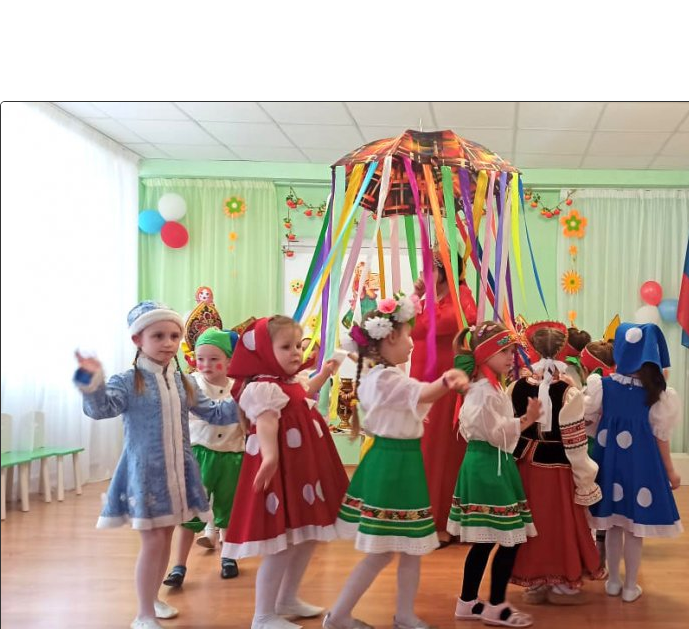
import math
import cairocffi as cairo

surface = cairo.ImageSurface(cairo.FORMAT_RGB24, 689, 629)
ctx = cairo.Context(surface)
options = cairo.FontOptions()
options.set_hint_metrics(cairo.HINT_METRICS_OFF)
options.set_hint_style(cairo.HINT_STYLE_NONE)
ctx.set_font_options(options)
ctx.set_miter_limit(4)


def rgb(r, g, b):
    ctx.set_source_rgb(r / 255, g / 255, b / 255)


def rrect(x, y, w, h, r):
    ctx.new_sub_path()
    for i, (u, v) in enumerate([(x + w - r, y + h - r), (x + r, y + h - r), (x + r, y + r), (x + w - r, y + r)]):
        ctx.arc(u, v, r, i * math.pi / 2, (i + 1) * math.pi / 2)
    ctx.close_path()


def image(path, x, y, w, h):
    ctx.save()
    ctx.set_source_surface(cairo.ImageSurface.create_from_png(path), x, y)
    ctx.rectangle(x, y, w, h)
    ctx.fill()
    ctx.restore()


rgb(255, 255, 255)
ctx.paint()
rrect(0.5, 101.5, 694, 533, 4.5)
rgb(51, 51, 51)
ctx.set_line_width(1)
ctx.stroke()
image('image0.png', 1, 102, 688, 527)
surface.write_to_png('render.png')
